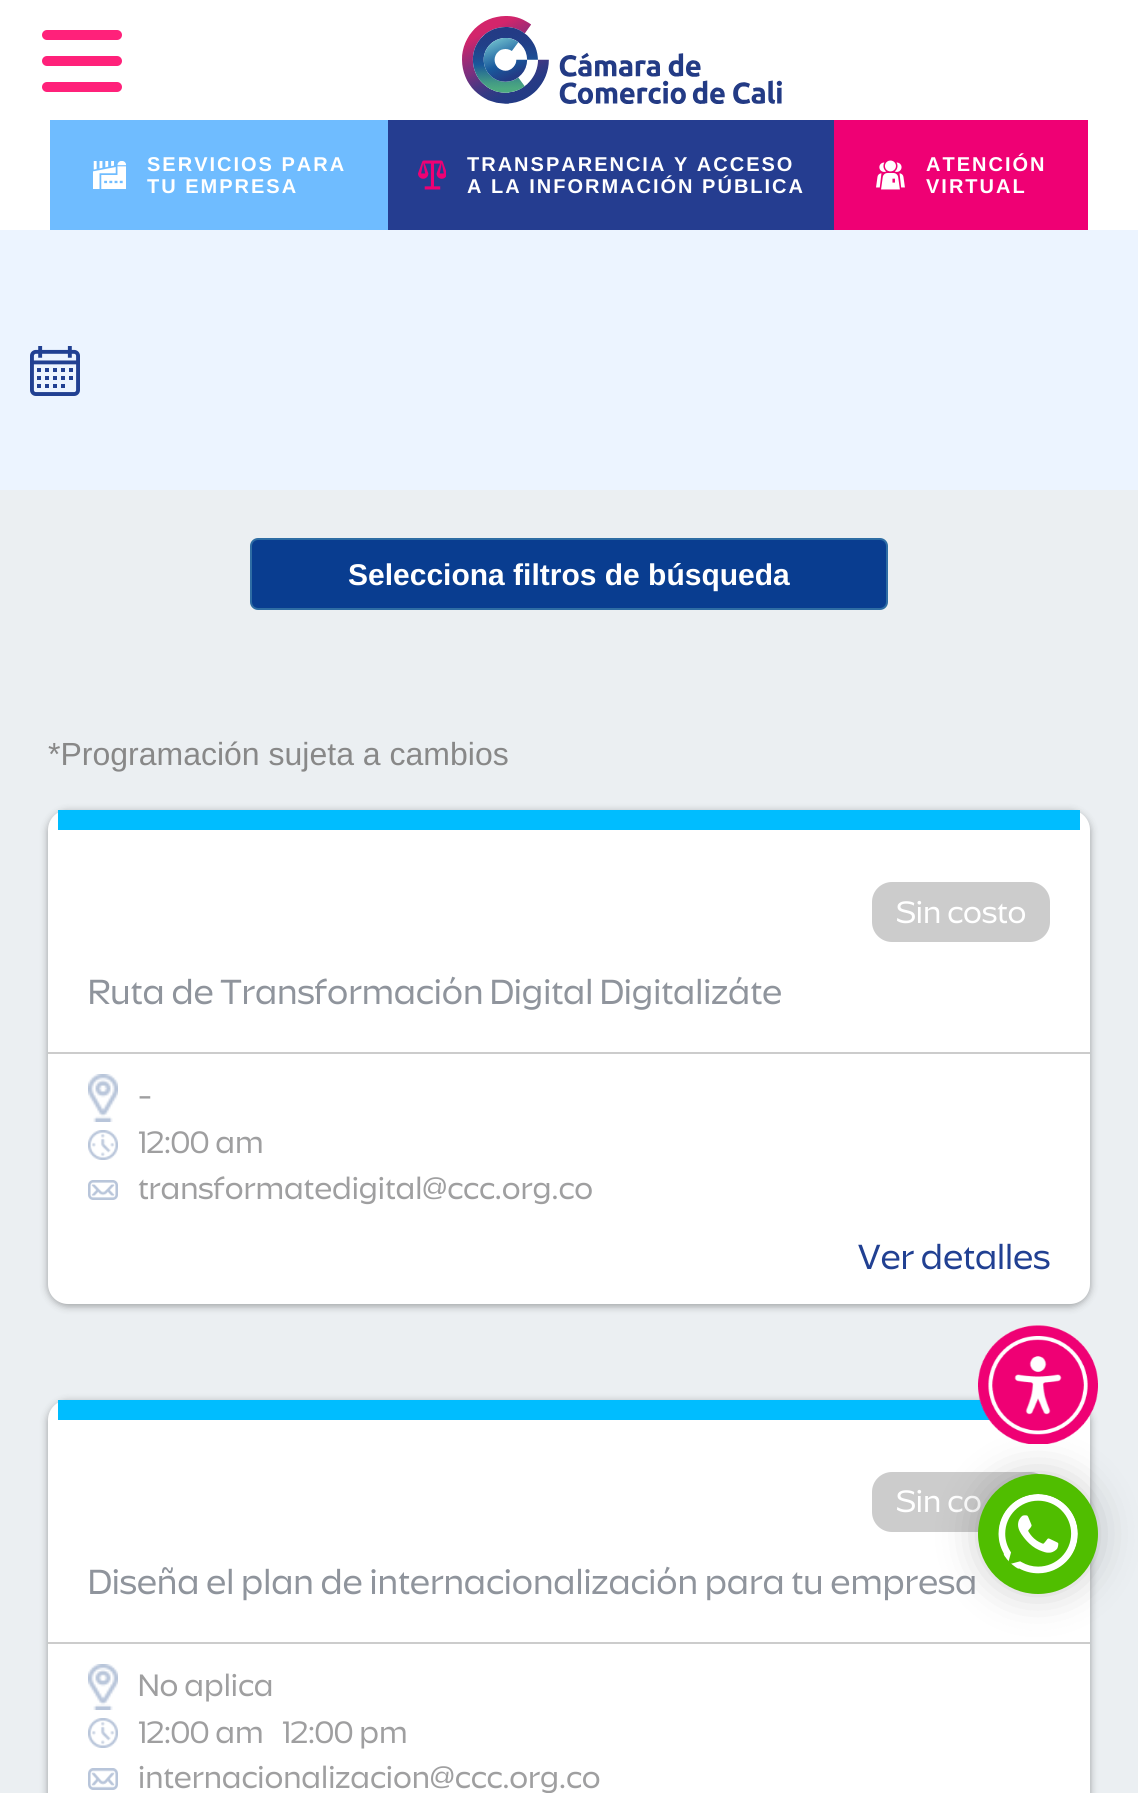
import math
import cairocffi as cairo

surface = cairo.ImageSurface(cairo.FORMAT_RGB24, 1138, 1793)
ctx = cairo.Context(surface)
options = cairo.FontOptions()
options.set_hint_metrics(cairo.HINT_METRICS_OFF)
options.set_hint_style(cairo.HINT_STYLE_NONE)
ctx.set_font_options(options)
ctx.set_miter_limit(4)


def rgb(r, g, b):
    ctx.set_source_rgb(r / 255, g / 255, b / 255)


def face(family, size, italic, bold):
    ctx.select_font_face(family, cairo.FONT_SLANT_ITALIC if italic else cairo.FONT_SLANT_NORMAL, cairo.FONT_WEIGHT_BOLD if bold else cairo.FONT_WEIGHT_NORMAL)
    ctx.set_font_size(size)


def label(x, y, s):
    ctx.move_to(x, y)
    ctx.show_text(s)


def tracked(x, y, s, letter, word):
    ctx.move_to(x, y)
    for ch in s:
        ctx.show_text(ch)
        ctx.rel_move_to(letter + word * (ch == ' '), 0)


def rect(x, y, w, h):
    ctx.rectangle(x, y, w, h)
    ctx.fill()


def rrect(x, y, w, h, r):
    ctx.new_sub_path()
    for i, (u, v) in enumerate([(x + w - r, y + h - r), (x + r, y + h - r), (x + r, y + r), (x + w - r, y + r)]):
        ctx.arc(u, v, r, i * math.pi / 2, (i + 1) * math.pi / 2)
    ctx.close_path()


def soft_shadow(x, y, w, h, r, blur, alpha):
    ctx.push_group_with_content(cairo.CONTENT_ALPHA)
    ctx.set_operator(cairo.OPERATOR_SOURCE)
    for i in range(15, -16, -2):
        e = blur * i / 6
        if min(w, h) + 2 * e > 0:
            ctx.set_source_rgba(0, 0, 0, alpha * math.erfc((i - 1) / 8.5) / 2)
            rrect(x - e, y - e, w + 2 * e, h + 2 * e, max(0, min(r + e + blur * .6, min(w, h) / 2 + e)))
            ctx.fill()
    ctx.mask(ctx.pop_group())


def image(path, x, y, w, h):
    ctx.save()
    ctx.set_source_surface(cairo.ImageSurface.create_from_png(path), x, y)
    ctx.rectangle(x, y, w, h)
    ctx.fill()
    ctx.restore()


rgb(255, 255, 255)
ctx.paint()
rgb(255, 33, 122)
rrect(42, 30, 80, 10, 5)
ctx.fill()
rrect(42, 56, 80, 10, 5)
ctx.fill()
rrect(42, 82, 80, 10, 5)
ctx.fill()
image('image0.png', 462, 16, 320, 88)
rgb(111, 188, 255)
rect(50, 120, 338, 110)
image('image1.png', 93, 161, 33, 28)
face('Liberation Sans', 20, 0, 1)
rgb(255, 255, 255)
tracked(147, 171, 'SERVICIOS PARA', 2, 0)
tracked(147, 193, 'TU EMPRESA', 2, 0)
rgb(37, 61, 144)
rect(388, 120, 446, 110)
image('image2.png', 418, 160, 28, 30)
rgb(255, 255, 255)
tracked(467, 171, 'TRANSPARENCIA Y ACCESO', 2, 0)
tracked(467, 193, 'A LA INFORMACIÓN PÚBLICA', 2, 0)
rgb(239, 0, 116)
rect(834, 120, 254, 110)
image('image3.png', 876, 160, 29, 30)
rgb(255, 255, 255)
tracked(926, 171, 'ATENCIÓN', 2, 0)
tracked(926, 193, 'VIRTUAL', 2, 0)
rgb(235, 239, 242)
rect(0, 490, 1138, 1303)
rgb(236, 244, 255)
rect(0, 230, 1138, 260)
image('image4.png', 30, 346, 50, 50)
rgb(9, 61, 144)
rrect(251, 539, 636, 70, 7)
ctx.fill_preserve()
rgb(46, 109, 164)
ctx.stroke()
face('Liberation Sans', 30, 0, 1)
rgb(255, 255, 255)
label(348, 585, 'Selecciona filtros de búsqueda')
face('Liberation Sans', 32, 0, 0)
rgb(136, 136, 136)
label(48, 765, '*Programación sujeta a cambios')
rgb(0, 0, 0)
soft_shadow(48, 812, 1042, 494, 20, 4, 0.35)
rgb(255, 255, 255)
rrect(48, 810, 1042, 494, 20)
ctx.fill()
rgb(0, 189, 255)
rect(58, 810, 1022, 20)
rgb(204, 204, 204)
rrect(872, 882, 178, 60, 20)
ctx.fill()
face('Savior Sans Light', 32, 0, 0)
rgb(255, 255, 255)
label(896, 923, 'Sin costo')
face('Savior Sans Light', 36, 0, 0)
rgb(143, 148, 156)
label(88, 1004, 'Ruta de Transformación Digital Digitalizáte')
rgb(204, 204, 204)
rect(48, 1052, 1042, 2)
image('image5.png', 88, 1074, 30, 48)
face('Savior Sans Light', 32, 0, 0)
rgb(159, 159, 160)
label(138, 1107, '-')
image('image6.png', 88, 1130, 30, 30)
label(138, 1153, '12:00 am')
image('image7.png', 88, 1180, 30, 20)
label(138, 1199, 'transformatedigital@ccc.org.co')
face('Savior Sans Light', 36, 0, 0)
rgb(33, 64, 146)
label(858, 1269, 'Ver detalles')
rgb(0, 0, 0)
soft_shadow(48, 1402, 1042, 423, 20, 4, 0.35)
rgb(255, 255, 255)
rrect(48, 1400, 1042, 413, 20)
ctx.fill()
rgb(0, 189, 255)
rect(58, 1400, 932, 20)
rgb(204, 204, 204)
rrect(872, 1472, 178, 60, 20)
ctx.fill()
face('Savior Sans Light', 32, 0, 0)
rgb(255, 255, 255)
label(896, 1512, 'Sin co')
face('Savior Sans Light', 36, 0, 0)
rgb(143, 148, 156)
label(88, 1594, 'Diseña el plan de internacionalización para tu empresa')
rgb(204, 204, 204)
rect(48, 1642, 1042, 2)
image('image8.png', 88, 1664, 30, 46)
face('Savior Sans Light', 32, 0, 0)
rgb(159, 159, 160)
label(138, 1696, 'No aplica')
image('image6.png', 88, 1718, 30, 30)
label(138, 1743, '12:00 am')
label(282, 1743, '12:00 pm')
image('image9.png', 88, 1768, 30, 22)
label(138, 1788, 'internacionalizacion@ccc.org.co')
rgb(0, 0, 0)
soft_shadow(978, 1474, 120, 120, 60, 20, 0.2)
rgb(239, 239, 239)
ctx.arc(1038, 1384, 60, 0, 2 * math.pi)
ctx.fill()
image('image10.png', 978, 1325, 120, 119)
rgb(80, 190, 0)
ctx.arc(1038, 1534, 60, 0, 2 * math.pi)
ctx.fill()
image('image11.png', 998, 1494, 80, 80)
surface.write_to_png('render.png')
